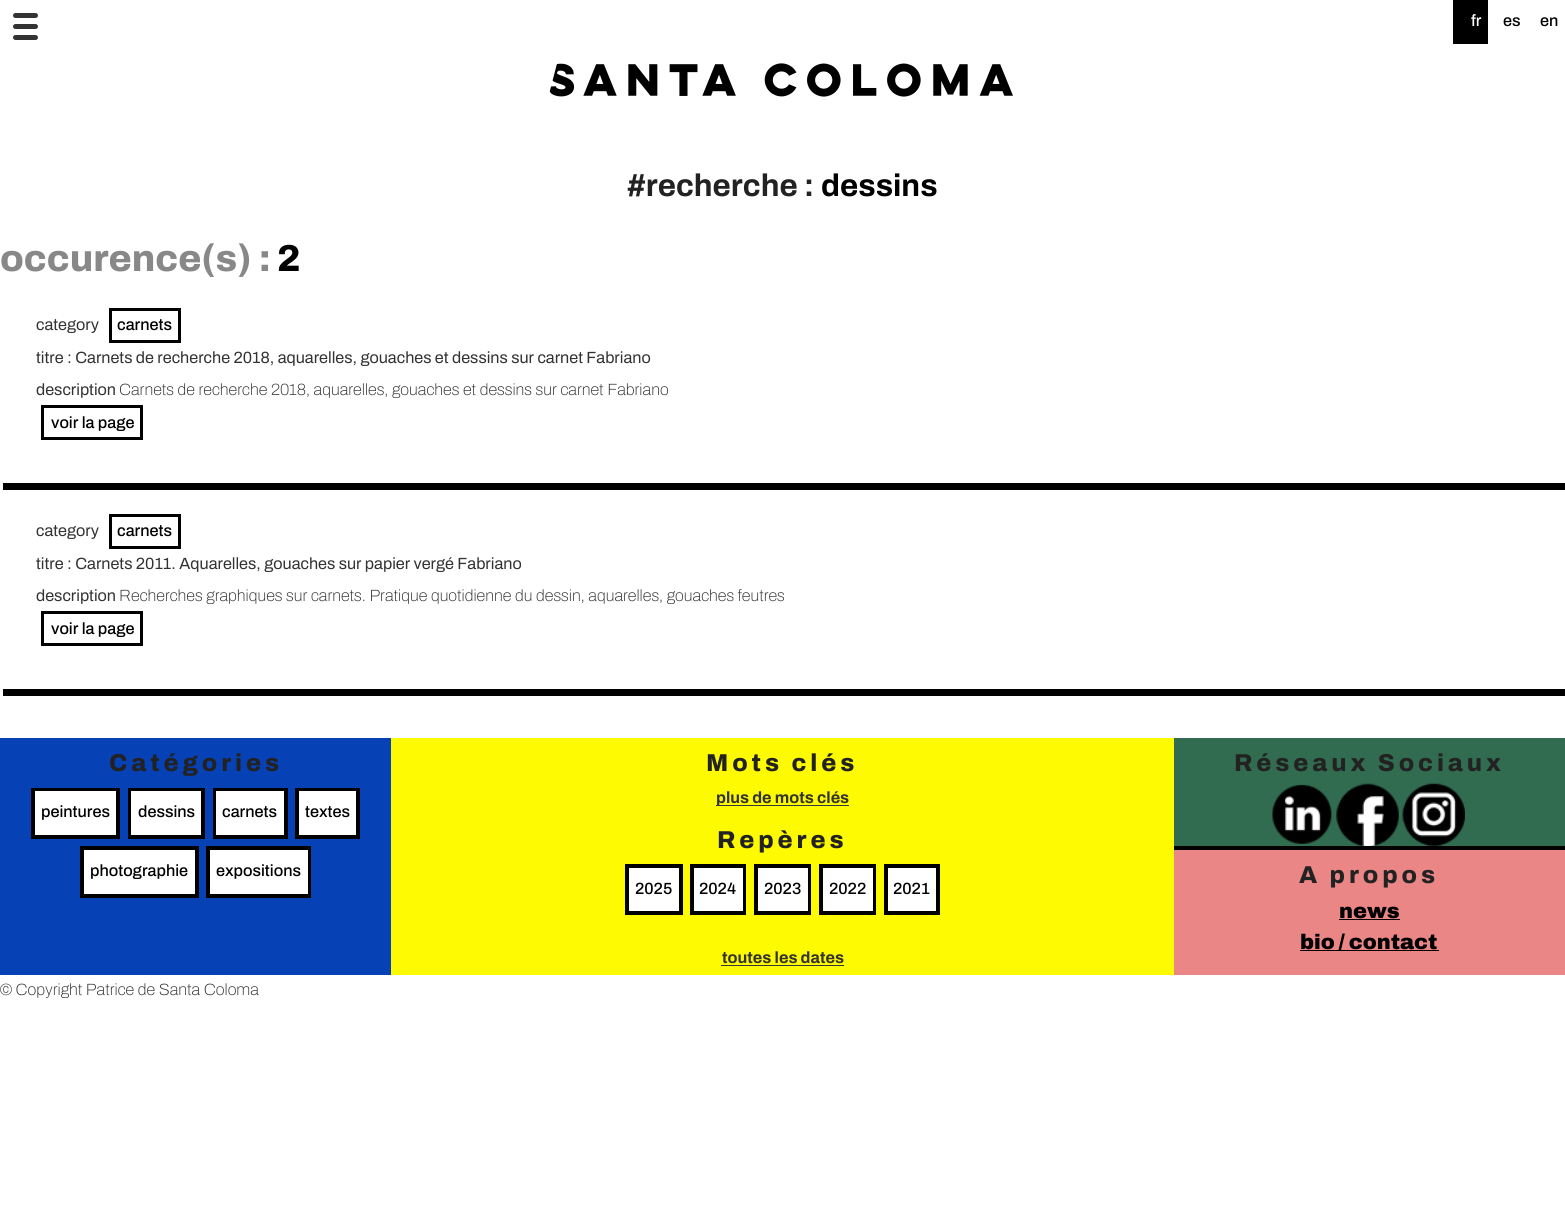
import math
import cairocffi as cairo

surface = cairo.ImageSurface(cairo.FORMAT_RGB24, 1565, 1222)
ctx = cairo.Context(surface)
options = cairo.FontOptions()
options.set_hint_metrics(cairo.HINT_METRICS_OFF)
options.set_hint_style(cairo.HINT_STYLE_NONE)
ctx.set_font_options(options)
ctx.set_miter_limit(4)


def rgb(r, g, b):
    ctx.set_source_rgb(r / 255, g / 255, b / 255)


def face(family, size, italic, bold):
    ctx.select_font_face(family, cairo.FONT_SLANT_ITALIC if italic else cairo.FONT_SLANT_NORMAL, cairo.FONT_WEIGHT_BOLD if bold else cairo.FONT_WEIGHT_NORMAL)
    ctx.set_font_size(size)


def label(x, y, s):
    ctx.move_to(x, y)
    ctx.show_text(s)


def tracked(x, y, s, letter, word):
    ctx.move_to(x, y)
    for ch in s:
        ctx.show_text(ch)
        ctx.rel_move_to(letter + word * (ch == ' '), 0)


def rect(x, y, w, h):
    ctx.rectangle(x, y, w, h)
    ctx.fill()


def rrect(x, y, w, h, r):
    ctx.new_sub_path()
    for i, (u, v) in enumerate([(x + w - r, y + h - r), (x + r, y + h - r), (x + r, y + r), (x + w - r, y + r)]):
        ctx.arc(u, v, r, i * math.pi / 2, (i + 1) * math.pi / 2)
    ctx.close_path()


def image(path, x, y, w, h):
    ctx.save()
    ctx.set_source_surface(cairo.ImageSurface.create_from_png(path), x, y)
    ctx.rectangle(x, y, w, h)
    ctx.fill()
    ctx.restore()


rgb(255, 255, 255)
ctx.paint()
rgb(51, 51, 51)
rrect(13, 13, 25, 5, 2.5)
ctx.fill()
rrect(13, 24, 25, 5, 2.5)
ctx.fill()
rrect(13, 35, 25, 5, 2.5)
ctx.fill()
rgb(0, 0, 0)
rect(1453, 0, 35, 44)
face('Archivo Medium', 16.25, 0, 0)
rgb(255, 255, 255)
label(1471, 26, 'fr')
rgb(0, 0, 0)
label(1503, 26, 'es')
label(1540, 26, 'en')
image('image0.png', 549, 63, 464, 34)
face('Archivo', 31.25, 0, 1)
rgb(34, 34, 34)
label(627, 196, '#recherche :')
rgb(0, 0, 0)
label(821, 196, 'dessins')
face('Archivo ExtraBold', 37.5, 0, 0)
rgb(136, 136, 136)
label(0, 271, 'occurence(s) :')
rgb(0, 0, 0)
label(277, 271, '2')
face('Archivo', 16.25, 0, 0)
rgb(51, 51, 51)
label(36, 330, 'category')
ctx.rectangle(110.5, 309.5, 69, 32)
rgb(0, 0, 0)
ctx.set_line_width(3)
ctx.stroke()
face('Archivo Medium', 16.25, 0, 0)
label(117, 330, 'carnets')
face('Archivo', 16.25, 0, 0)
rgb(51, 51, 51)
label(36, 363, 'titre : Carnets de recherche 2018, aquarelles, gouaches et dessins sur carnet Fabriano')
label(36, 395, 'description')
face('Archivo Thin', 16.25, 0, 0)
label(119, 395, 'Carnets de recherche 2018, aquarelles, gouaches et dessins sur carnet Fabriano')
ctx.rectangle(42.5, 406.5, 99, 32)
rgb(0, 0, 0)
ctx.stroke()
face('Archivo Medium', 16.25, 0, 0)
label(51, 428, 'voir la page')
rect(3, 483, 1562, 7)
face('Archivo', 16.25, 0, 0)
rgb(51, 51, 51)
label(36, 536, 'category')
ctx.rectangle(110.5, 515.5, 69, 32)
rgb(0, 0, 0)
ctx.stroke()
face('Archivo Medium', 16.25, 0, 0)
label(117, 536, 'carnets')
face('Archivo', 16.25, 0, 0)
rgb(51, 51, 51)
label(36, 569, 'titre : Carnets 2011. Aquarelles, gouaches sur papier vergé Fabriano')
label(36, 601, 'description')
face('Archivo Thin', 16.25, 0, 0)
label(119, 601, 'Recherches graphiques sur carnets. Pratique quotidienne du dessin, aquarelles, gouaches feutres')
ctx.rectangle(42.5, 612.5, 99, 32)
rgb(0, 0, 0)
ctx.stroke()
face('Archivo Medium', 16.25, 0, 0)
label(51, 634, 'voir la page')
rect(3, 689, 1562, 7)
rgb(7, 65, 182)
rect(0, 738, 391, 237)
face('Archivo ExtraBold', 24.4, 0, 0)
rgb(34, 34, 34)
tracked(109, 771, 'Catégories', 3.9, 0)
ctx.rectangle(33, 790, 85, 47)
rgb(0, 0, 0)
ctx.set_line_width(4)
ctx.stroke()
rgb(255, 255, 255)
rect(35, 791, 81, 44)
face('Archivo Medium', 16.25, 0, 0)
rgb(0, 0, 0)
label(41, 817, 'peintures')
ctx.rectangle(130, 790, 73, 47)
ctx.stroke()
rgb(255, 255, 255)
rect(131, 791, 70, 44)
rgb(0, 0, 0)
label(138, 817, 'dessins')
ctx.rectangle(215, 790, 71, 47)
ctx.stroke()
rgb(255, 255, 255)
rect(216, 791, 68, 44)
rgb(0, 0, 0)
label(222, 817, 'carnets')
ctx.rectangle(297, 790, 61, 47)
ctx.stroke()
rgb(255, 255, 255)
rect(299, 791, 57, 44)
rgb(0, 0, 0)
label(305, 817, 'textes')
ctx.rectangle(82, 848, 115, 48)
ctx.stroke()
rgb(255, 255, 255)
rect(84, 850, 111, 44)
rgb(0, 0, 0)
label(90, 876, 'photographie')
ctx.rectangle(208, 848, 101, 48)
ctx.stroke()
rgb(255, 255, 255)
rect(210, 850, 98, 44)
rgb(0, 0, 0)
label(216, 876, 'expositions')
rgb(253, 250, 1)
rect(391, 738, 783, 237)
face('Archivo ExtraBold', 24.4, 0, 0)
rgb(34, 34, 34)
tracked(706, 771, 'Mots clés', 3.9, 0)
rgb(56, 56, 56)
rect(716, 805, 133, 1)
face('Archivo', 16.25, 0, 1)
rgb(51, 51, 51)
label(716, 803, 'plus de mots clés')
face('Archivo ExtraBold', 24.4, 0, 0)
rgb(34, 34, 34)
tracked(717, 848, 'Repères', 3.9, 0)
ctx.rectangle(627, 866, 54, 47)
rgb(0, 0, 0)
ctx.stroke()
rgb(255, 255, 255)
rect(629, 868, 50, 43)
face('Archivo Medium', 16.25, 0, 0)
rgb(0, 0, 0)
label(635, 894, '2025')
ctx.rectangle(692, 866, 52, 47)
ctx.stroke()
rgb(255, 255, 255)
rect(694, 868, 49, 43)
rgb(0, 0, 0)
label(699, 894, '2024')
ctx.rectangle(756, 866, 53, 47)
ctx.stroke()
rgb(255, 255, 255)
rect(758, 868, 50, 43)
rgb(0, 0, 0)
label(764, 894, '2023')
ctx.rectangle(821, 866, 53, 47)
ctx.stroke()
rgb(255, 255, 255)
rect(823, 868, 50, 43)
rgb(0, 0, 0)
label(829, 894, '2022')
ctx.rectangle(886, 866, 52, 47)
ctx.stroke()
rgb(255, 255, 255)
rect(888, 868, 48, 43)
rgb(0, 0, 0)
label(893, 894, '2021')
face('Archivo', 16.25, 0, 1)
rgb(51, 51, 51)
label(722, 963, 'toutes les dates')
rgb(56, 56, 56)
rect(721, 965, 123, 1)
rgb(50, 108, 80)
rect(1174, 738, 391, 108)
face('Archivo ExtraBold', 24.4, 0, 0)
rgb(34, 34, 34)
tracked(1234, 771, 'Réseaux Sociaux', 3.9, 0)
image('image1.png', 1272, 784, 60, 60)
image('image2.png', 1336, 783, 63, 63)
image('image3.png', 1402, 783, 63, 63)
rgb(234, 134, 133)
rect(1174, 850, 391, 125)
rgb(0, 0, 0)
rect(1174, 846, 391, 4)
rgb(34, 34, 34)
tracked(1299, 883, 'A propos', 3.9, 0)
face('Archivo Black', 21, 0, 0)
rgb(0, 0, 0)
label(1339, 918, 'news')
rect(1339, 919, 61, 1)
label(1300, 949, 'bio / contact')
rect(1300, 950, 139, 1)
face('Archivo Thin', 16.25, 0, 0)
rgb(51, 51, 51)
label(0, 995, '© Copyright Patrice de Santa Coloma')
surface.write_to_png('render.png')
